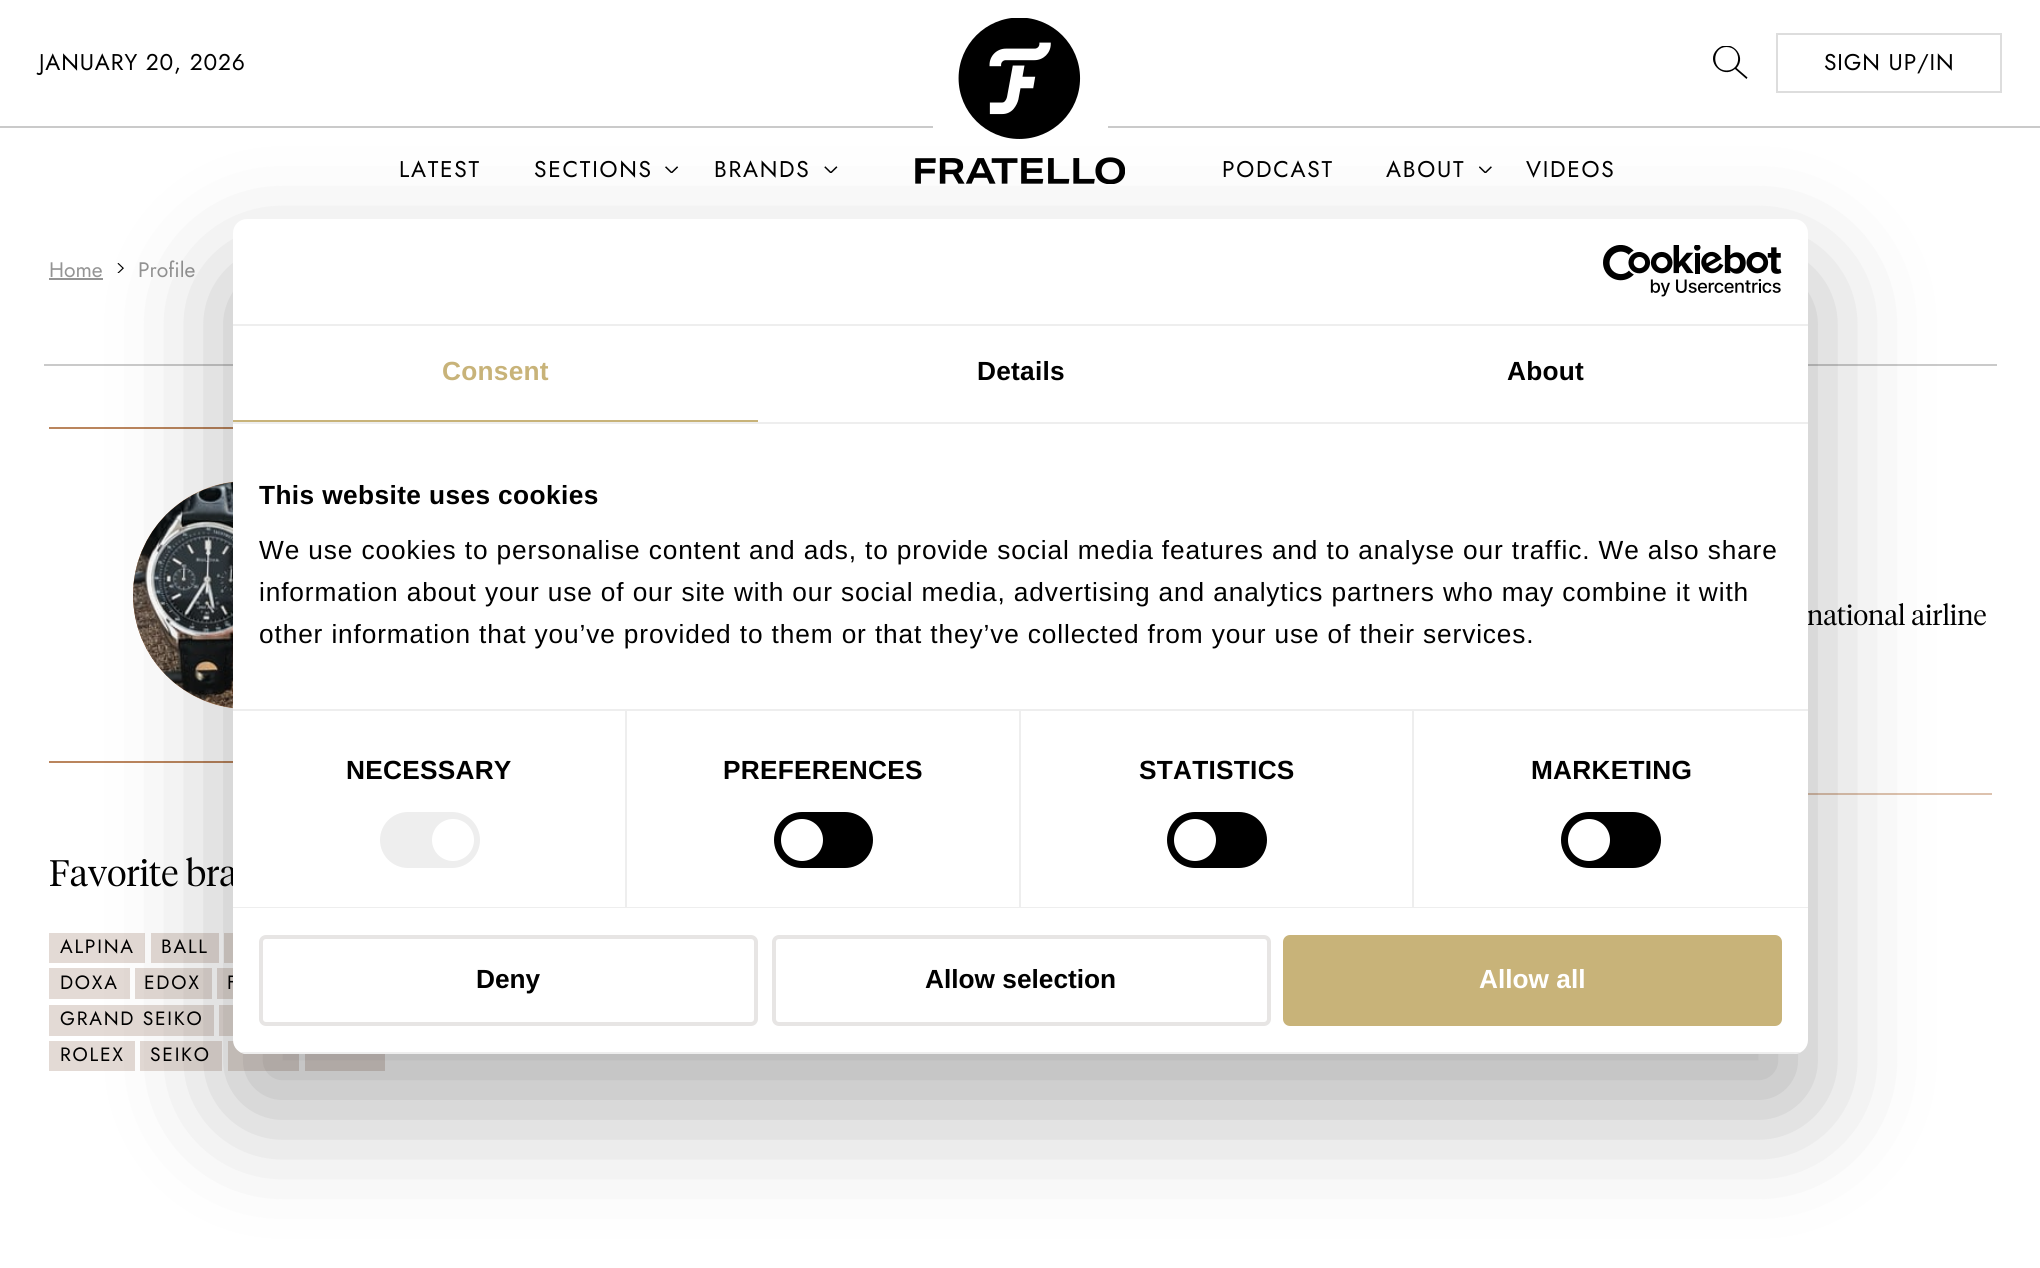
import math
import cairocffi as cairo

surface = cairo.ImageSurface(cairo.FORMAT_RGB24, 2040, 1268)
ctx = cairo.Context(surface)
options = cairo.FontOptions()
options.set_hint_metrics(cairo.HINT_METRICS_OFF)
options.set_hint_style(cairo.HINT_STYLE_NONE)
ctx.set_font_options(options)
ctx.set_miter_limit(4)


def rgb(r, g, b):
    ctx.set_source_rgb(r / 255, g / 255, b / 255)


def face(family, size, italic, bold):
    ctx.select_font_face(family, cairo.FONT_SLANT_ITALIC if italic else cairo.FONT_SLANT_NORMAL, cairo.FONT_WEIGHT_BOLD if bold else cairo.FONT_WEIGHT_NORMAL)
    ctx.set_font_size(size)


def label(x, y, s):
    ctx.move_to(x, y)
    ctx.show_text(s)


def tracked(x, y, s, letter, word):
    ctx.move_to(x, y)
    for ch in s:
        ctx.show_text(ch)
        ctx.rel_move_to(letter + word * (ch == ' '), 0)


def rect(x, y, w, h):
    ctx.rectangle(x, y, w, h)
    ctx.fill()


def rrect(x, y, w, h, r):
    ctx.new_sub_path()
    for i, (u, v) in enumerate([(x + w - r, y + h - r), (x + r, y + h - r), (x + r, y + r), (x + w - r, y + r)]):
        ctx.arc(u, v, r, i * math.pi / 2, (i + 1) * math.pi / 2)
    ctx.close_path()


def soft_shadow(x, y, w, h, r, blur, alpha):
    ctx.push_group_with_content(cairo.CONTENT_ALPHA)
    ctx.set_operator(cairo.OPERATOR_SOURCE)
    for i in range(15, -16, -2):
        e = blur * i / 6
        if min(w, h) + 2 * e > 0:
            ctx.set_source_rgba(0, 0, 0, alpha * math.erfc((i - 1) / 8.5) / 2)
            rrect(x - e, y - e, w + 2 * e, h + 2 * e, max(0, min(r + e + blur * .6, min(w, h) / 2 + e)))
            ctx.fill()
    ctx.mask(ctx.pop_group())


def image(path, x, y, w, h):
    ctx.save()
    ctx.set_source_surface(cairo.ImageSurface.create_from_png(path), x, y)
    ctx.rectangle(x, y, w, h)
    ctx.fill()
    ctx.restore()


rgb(255, 255, 255)
ctx.paint()
face('Jost', 22.75, 0, 0)
rgb(0, 0, 0)
tracked(39, 70, 'JANUARY 20, 2026', 0.88, 0)
rgb(202, 202, 202)
rect(0, 126, 933, 2)
image('image0.png', 915, 18, 210, 166)
ctx.save()
ctx.rectangle(1713, 46, 35, 33)
ctx.clip()
rgb(0, 0, 0)
ctx.new_path()
ctx.move_to(1747.5, 77.5)
ctx.line_to(1736.5, 68)
ctx.curve_to(1748, 55.5, 1729.5, 37, 1717, 49.5)
ctx.curve_to(1705, 61.5, 1722.5, 79.5, 1735, 69)
ctx.line_to(1746.5, 79)
ctx.close_path()
ctx.move_to(1726.5, 70.5)
ctx.curve_to(1711.5, 70.5, 1711.5, 47, 1726.5, 47)
ctx.curve_to(1742, 47, 1742, 70.5, 1726.5, 70.5)
ctx.close_path()
ctx.fill()
ctx.restore()
ctx.rectangle(1777, 34, 224, 58)
rgb(221, 221, 221)
ctx.stroke()
rgb(0, 0, 0)
tracked(1824, 70, 'SIGN UP/IN', 0.88, 0)
rgb(202, 202, 202)
rect(1108, 126, 932, 2)
rgb(0, 0, 0)
tracked(399, 177, 'LATEST', 1.75, 0)
tracked(534, 177, 'SECTIONS', 1.75, 0)
image('image1.png', 665, 166, 14, 7)
tracked(714, 177, 'BRANDS', 1.75, 0)
image('image2.png', 824, 166, 14, 7)
tracked(1222, 177, 'PODCAST', 1.75, 0)
tracked(1386, 177, 'ABOUT', 1.75, 0)
image('image3.png', 1479, 166, 13, 7)
tracked(1526, 177, 'VIDEOS', 1.75, 0)
face('Jost', 21, 0, 0)
rgb(148, 148, 148)
label(49, 277, 'Home')
rect(49, 278, 54, 2)
image('image4.png', 117, 263, 7, 10)
label(138, 277, 'Profile')
rgb(202, 202, 202)
rect(44, 364, 1953, 2)
rgb(221, 194, 174)
rect(1808, 793, 184, 2)
face('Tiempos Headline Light', 28, 0, 0)
rgb(0, 0, 0)
label(1807, 625, 'national airline')
rgb(186, 133, 93)
rect(49, 427, 184, 2)
rect(49, 761, 184, 2)
ctx.new_path()
ctx.arc(247, 595, 114, 0, 2 * math.pi)
ctx.fill()
image('image5.png', 133, 482, 100, 226)
face('Tiempos Headline Light', 36.75, 0, 0)
rgb(0, 0, 0)
label(49, 886, 'Favorite bra')
rgb(227, 218, 213)
rect(49, 933, 96, 30)
face('Jost', 19.25, 0, 0)
rgb(0, 0, 0)
tracked(60, 953, 'ALPINA', 1.75, 0)
rgb(227, 218, 213)
rect(151, 933, 68, 30)
rgb(0, 0, 0)
tracked(161, 953, 'BALL', 1.75, 0)
rgb(227, 218, 213)
rect(224, 933, 9, 30)
rect(49, 968, 81, 31)
rgb(0, 0, 0)
tracked(60, 989, 'DOXA', 1.75, 0)
rgb(227, 218, 213)
rect(135, 968, 77, 31)
rgb(0, 0, 0)
tracked(144, 989, 'EDOX', 1.75, 0)
rgb(227, 218, 213)
rect(217, 968, 16, 31)
rgb(0, 0, 0)
tracked(227, 989, 'F', 1.75, 0)
rgb(227, 218, 213)
rect(49, 1005, 165, 31)
rgb(0, 0, 0)
tracked(60, 1025, 'GRAND SEIKO', 1.75, 0)
rgb(227, 218, 213)
rect(219, 1005, 14, 31)
rect(49, 1041, 86, 30)
rgb(0, 0, 0)
tracked(60, 1061, 'ROLEX', 1.75, 0)
rgb(227, 218, 213)
rect(140, 1041, 82, 30)
rgb(0, 0, 0)
tracked(150, 1061, 'SEIKO', 1.75, 0)
rgb(227, 218, 213)
rect(228, 1041, 71, 30)
rect(305, 1054, 80, 17)
rgb(0, 0, 0)
soft_shadow(233, 275, 1575, 835, 14, 59.5, 0.3)
rgb(255, 255, 255)
rrect(233, 219, 1575, 835, 14)
ctx.fill()
rgb(238, 238, 238)
rect(233, 324, 1575, 2)
image('image6.png', 1603, 245, 179, 52)
rect(233, 422, 1575, 2)
rgb(200, 179, 121)
rect(233, 420, 525, 2)
face('Liberation Sans', 26.25, 0, 1)
tracked(442, 380, 'Consent', 0.25, 0)
rgb(0, 0, 0)
tracked(977, 380, 'Details', 0.25, 0)
tracked(1507, 380, 'About', 0.25, 0)
rgb(238, 238, 238)
rect(233, 709, 1575, 2)
rgb(0, 0, 0)
tracked(259, 504, 'This website uses cookies', 0.4, 0)
face('Liberation Sans', 26.25, 0, 0)
tracked(259, 559, 'We use cookies to personalise content and ads, to provide social media features and to analyse our traffic. We also share', 0.88, 0)
tracked(259, 601, 'information about your use of our site with our social media, advertising and analytics partners who may combine it with', 0.88, 0)
tracked(259, 643, 'other information that you’ve provided to them or that they’ve collected from your use of their services.', 0.88, 0)
rgb(238, 238, 238)
rect(233, 907, 1575, 1)
rect(625, 711, 2, 196)
face('Liberation Sans', 26.25, 0, 1)
rgb(0, 0, 0)
tracked(346, 779, 'NECESSARY', 0.25, 0)
rgb(238, 238, 238)
rrect(380, 812, 100, 56, 28)
ctx.fill()
rgb(255, 255, 255)
ctx.arc(453, 840, 21, 0, 2 * math.pi)
ctx.fill()
rgb(238, 238, 238)
rect(1019, 711, 2, 196)
rgb(0, 0, 0)
tracked(723, 779, 'PREFERENCES', 0.25, 0)
rrect(774, 812, 99, 56, 28)
ctx.fill()
rgb(255, 255, 255)
ctx.arc(802, 840, 21, 0, 2 * math.pi)
ctx.fill()
rgb(238, 238, 238)
rect(1412, 711, 2, 196)
rgb(0, 0, 0)
tracked(1139, 779, 'STATISTICS', 0.25, 0)
rrect(1167, 812, 100, 56, 28)
ctx.fill()
rgb(255, 255, 255)
ctx.arc(1195, 840, 21, 0, 2 * math.pi)
ctx.fill()
rgb(0, 0, 0)
tracked(1531, 779, 'MARKETING', 0.25, 0)
rrect(1561, 812, 100, 56, 28)
ctx.fill()
rgb(255, 255, 255)
ctx.arc(1589, 840, 21, 0, 2 * math.pi)
ctx.fill()
ctx.save()
rrect(233, 219, 1575, 835, 14)
ctx.clip()
rgb(238, 238, 238)
rect(233, 1052, 1575, 2)
ctx.restore()
rrect(261, 937, 495, 87, 5)
rgb(231, 229, 228)
ctx.set_line_width(4)
ctx.stroke()
rgb(0, 0, 0)
label(476, 988, 'Deny')
rrect(774, 937, 495, 87, 5)
rgb(231, 229, 228)
ctx.stroke()
rgb(0, 0, 0)
label(925, 988, 'Allow selection')
rgb(200, 179, 121)
rrect(1285, 937, 495, 87, 5)
ctx.fill_preserve()
ctx.stroke()
rgb(255, 255, 255)
label(1479, 988, 'Allow all')
surface.write_to_png('render.png')
